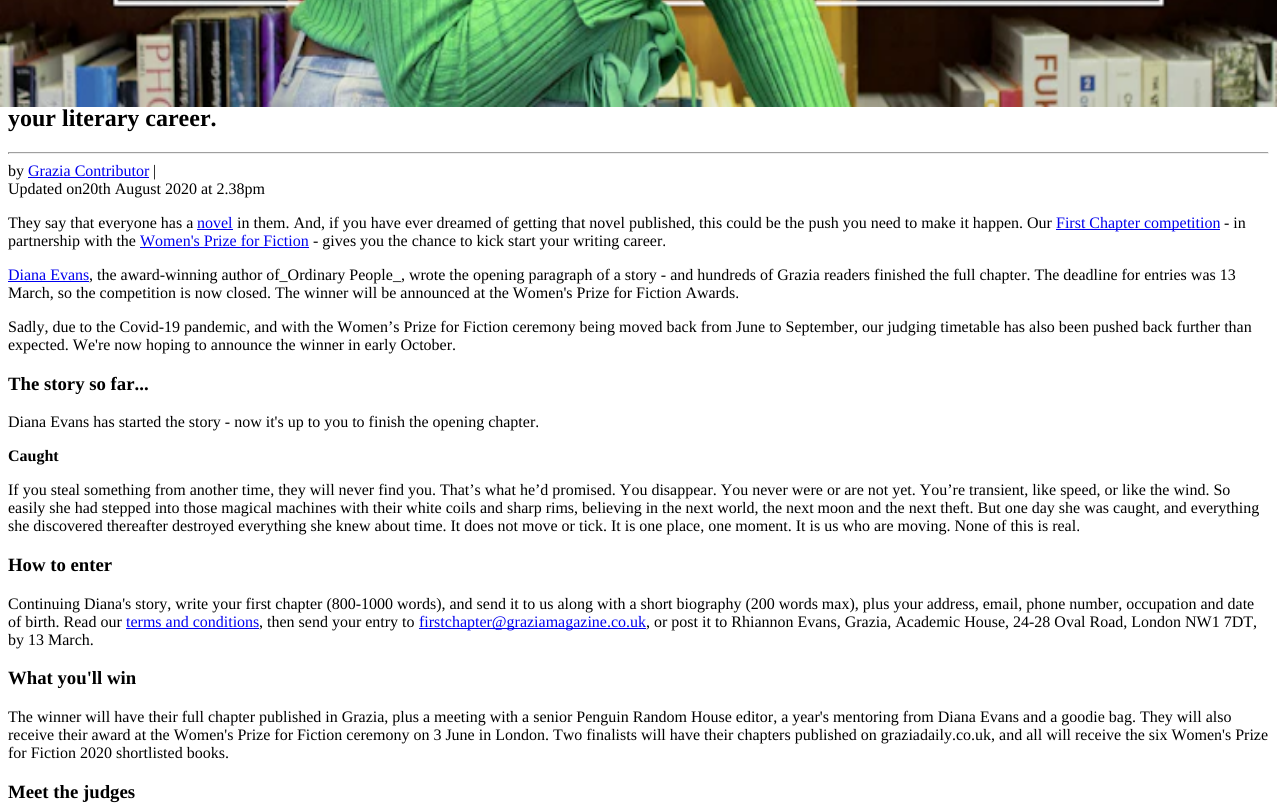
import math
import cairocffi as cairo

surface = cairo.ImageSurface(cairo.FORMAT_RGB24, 1277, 807)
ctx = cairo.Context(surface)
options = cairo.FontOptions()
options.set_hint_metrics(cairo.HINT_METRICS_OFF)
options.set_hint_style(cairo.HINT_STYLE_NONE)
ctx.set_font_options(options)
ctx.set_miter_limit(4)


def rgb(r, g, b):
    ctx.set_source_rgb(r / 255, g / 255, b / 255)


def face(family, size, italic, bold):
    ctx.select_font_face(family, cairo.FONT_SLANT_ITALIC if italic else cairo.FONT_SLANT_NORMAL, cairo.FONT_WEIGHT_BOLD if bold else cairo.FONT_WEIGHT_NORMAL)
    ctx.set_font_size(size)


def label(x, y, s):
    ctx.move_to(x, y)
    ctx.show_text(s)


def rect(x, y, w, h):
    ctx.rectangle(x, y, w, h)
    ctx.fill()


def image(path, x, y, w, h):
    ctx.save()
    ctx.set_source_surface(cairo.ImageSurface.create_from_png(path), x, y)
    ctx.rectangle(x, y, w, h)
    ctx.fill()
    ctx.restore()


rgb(255, 255, 255)
ctx.paint()
image('image0.png', 0, 0, 1277, 107)
face('Liberation Serif', 24, 0, 1)
rgb(0, 0, 0)
label(8, 126, 'your literary career.')
rgb(159, 159, 159)
rect(8, 152, 1261, 1)
rgb(238, 238, 238)
rect(1268, 152, 1, 2)
rect(8, 153, 1261, 1)
rgb(159, 159, 159)
rect(8, 152, 1, 2)
face('Liberation Serif', 16, 0, 0)
rgb(0, 0, 0)
label(8, 176, 'by')
rgb(0, 0, 238)
label(28, 176, 'Grazia Contributor')
rect(28, 177, 121, 1)
rgb(0, 0, 0)
label(153, 176, '|')
label(8, 194, 'Updated on20th August 2020 at 2.38pm')
label(8, 228, 'They say that everyone has a')
rgb(0, 0, 238)
label(197, 228, 'novel')
rect(197, 229, 36, 1)
rgb(0, 0, 0)
label(237, 228, 'in them. And, if you have ever dreamed of getting that novel published, this could be the push you need to make it happen. Our')
rgb(0, 0, 238)
rect(1056, 229, 164, 1)
label(1056, 228, 'First Chapter competition')
rgb(0, 0, 0)
label(1224, 228, '- in')
label(8, 246, 'partnership with the')
rgb(0, 0, 238)
label(140, 246, 'Women\'s Prize for Fiction')
rect(140, 247, 169, 1)
rgb(0, 0, 0)
label(313, 246, '- gives you the chance to kick start your writing career.')
rgb(0, 0, 238)
label(8, 280, 'Diana Evans')
rect(8, 281, 81, 1)
rgb(0, 0, 0)
label(89, 280, ', the award-winning author of_Ordinary People_, wrote the opening paragraph of a story - and hundreds of Grazia readers finished the full chapter. The deadline for entries was 13')
label(8, 298, 'March, so the competition is now closed. The winner will be announced at the Women\'s Prize for Fiction Awards.')
label(8, 332, 'Sadly, due to the Covid-19 pandemic, and with the Women’s Prize for Fiction ceremony being moved back from June to September, our judging timetable has also been pushed back further than')
label(8, 350, 'expected. We\'re now hoping to announce the winner in early October.')
face('Liberation Serif', 18.75, 0, 1)
label(8, 390, 'The story so far...')
face('Liberation Serif', 16, 0, 0)
label(8, 427, 'Diana Evans has started the story - now it\'s up to you to finish the opening chapter.')
face('Liberation Serif', 16, 0, 1)
label(8, 461, 'Caught')
face('Liberation Serif', 16, 0, 0)
label(8, 495, 'If you steal something from another time, they will never find you. That’s what he’d promised. You disappear. You never were or are not yet. You’re transient, like speed, or like the wind. So')
label(8, 513, 'easily she had stepped into those magical machines with their white coils and sharp rims, believing in the next world, the next moon and the next theft. But one day she was caught, and everything')
label(8, 531, 'she discovered thereafter destroyed everything she knew about time. It does not move or tick. It is one place, one moment. It is us who are moving. None of this is real.')
face('Liberation Serif', 18.75, 0, 1)
label(8, 571, 'How to enter')
face('Liberation Serif', 16, 0, 0)
label(8, 609, 'Continuing Diana\'s story, write your first chapter (800-1000 words), and send it to us along with a short biography (200 words max), plus your address, email, phone number, occupation and date')
label(8, 627, 'of birth. Read our')
rgb(0, 0, 238)
label(126, 627, 'terms and conditions')
rect(126, 628, 133, 1)
rgb(0, 0, 0)
label(259, 627, ', then send your entry to')
rgb(0, 0, 238)
rect(419, 628, 227, 1)
label(419, 627, 'firstchapter@graziamagazine.co.uk')
rgb(0, 0, 0)
label(646, 627, ', or post it to Rhiannon Evans, Grazia, Academic House, 24-28 Oval Road, London NW1 7DT,')
label(8, 645, 'by 13 March.')
face('Liberation Serif', 18.75, 0, 1)
label(8, 684, 'What you\'ll win')
face('Liberation Serif', 16, 0, 0)
label(8, 722, 'The winner will have their full chapter published in Grazia, plus a meeting with a senior Penguin Random House editor, a year\'s mentoring from Diana Evans and a goodie bag. They will also')
label(8, 740, 'receive their award at the Women\'s Prize for Fiction ceremony on 3 June in London. Two finalists will have their chapters published on graziadaily.co.uk, and all will receive the six Women\'s Prize')
label(8, 758, 'for Fiction 2020 shortlisted books.')
face('Liberation Serif', 18.75, 0, 1)
label(8, 798, 'Meet the judges')
surface.write_to_png('render.png')
